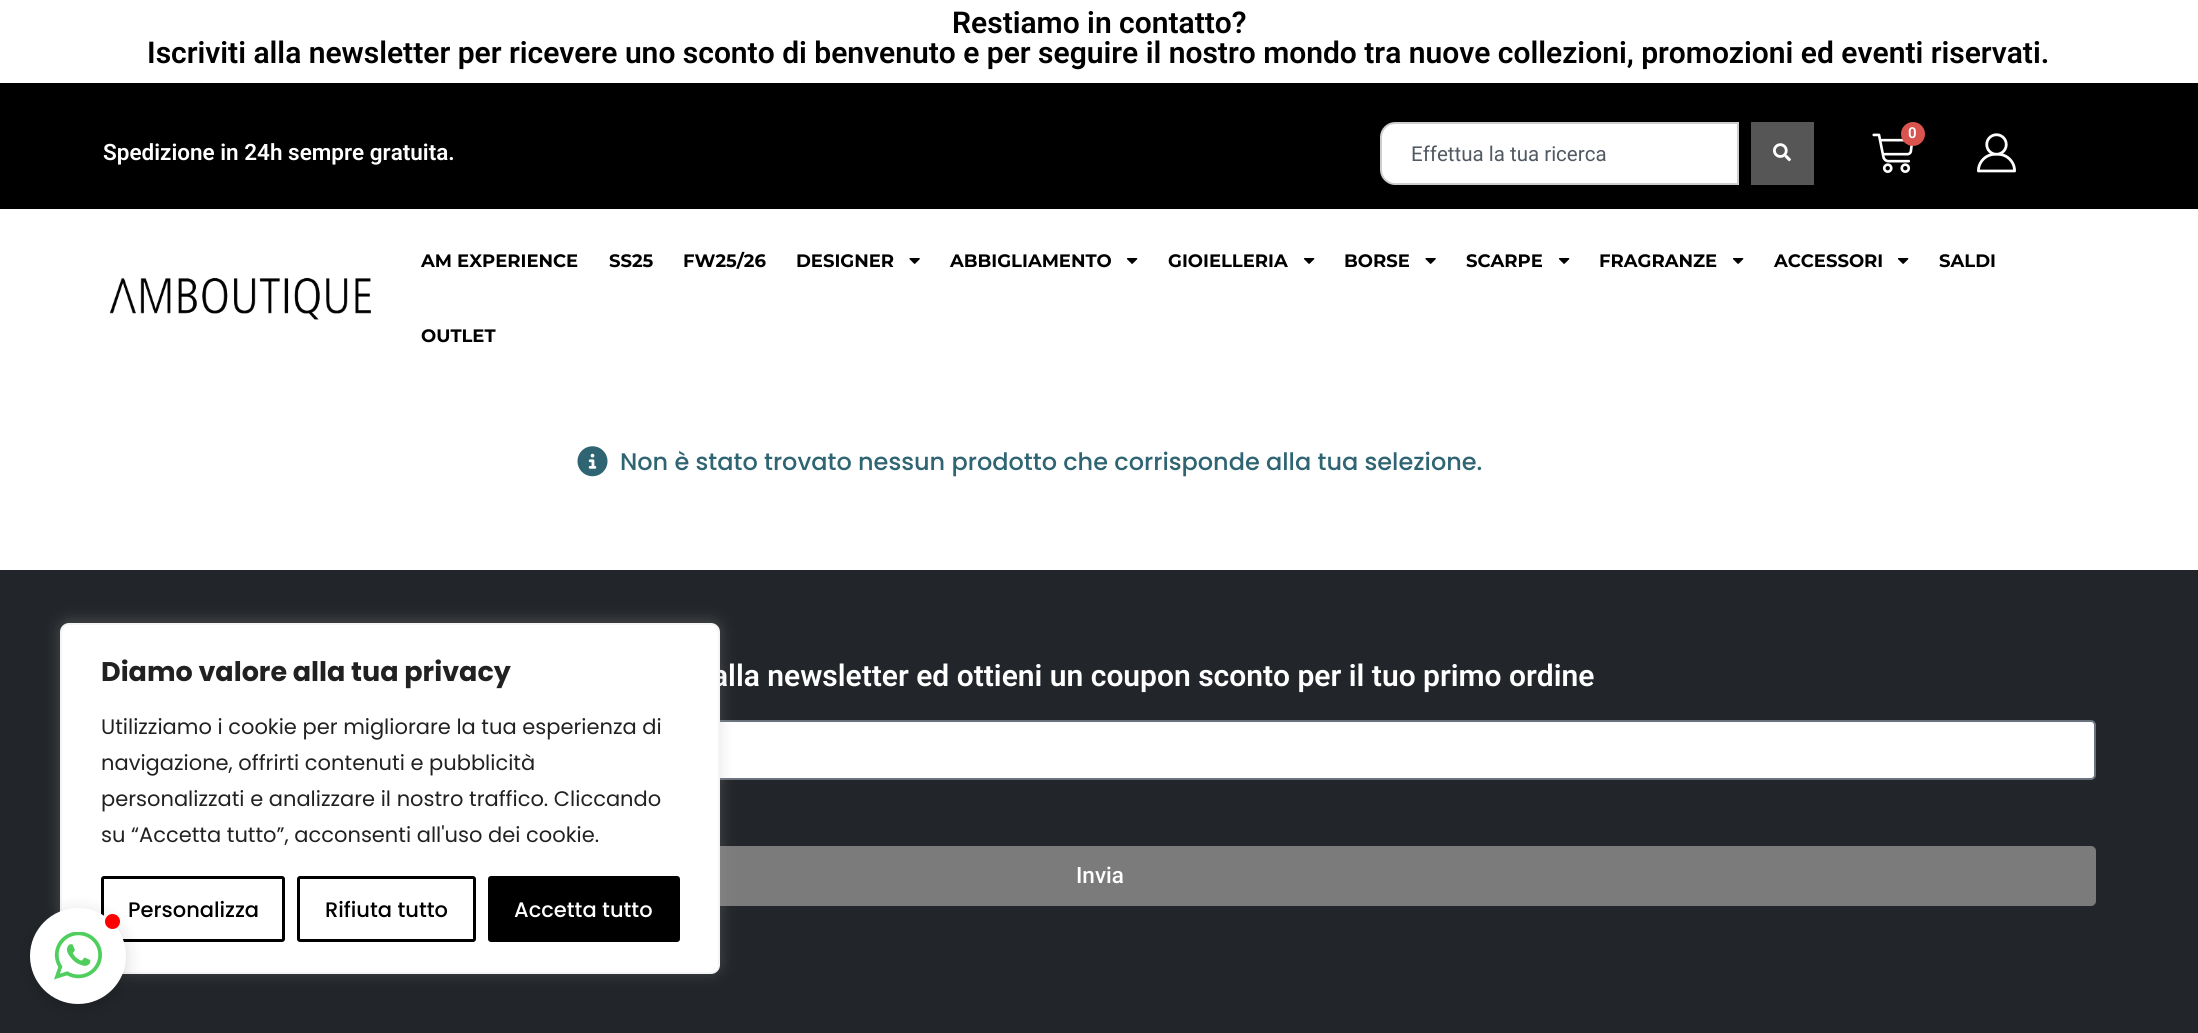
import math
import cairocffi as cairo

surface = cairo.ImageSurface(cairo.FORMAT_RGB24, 2198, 1033)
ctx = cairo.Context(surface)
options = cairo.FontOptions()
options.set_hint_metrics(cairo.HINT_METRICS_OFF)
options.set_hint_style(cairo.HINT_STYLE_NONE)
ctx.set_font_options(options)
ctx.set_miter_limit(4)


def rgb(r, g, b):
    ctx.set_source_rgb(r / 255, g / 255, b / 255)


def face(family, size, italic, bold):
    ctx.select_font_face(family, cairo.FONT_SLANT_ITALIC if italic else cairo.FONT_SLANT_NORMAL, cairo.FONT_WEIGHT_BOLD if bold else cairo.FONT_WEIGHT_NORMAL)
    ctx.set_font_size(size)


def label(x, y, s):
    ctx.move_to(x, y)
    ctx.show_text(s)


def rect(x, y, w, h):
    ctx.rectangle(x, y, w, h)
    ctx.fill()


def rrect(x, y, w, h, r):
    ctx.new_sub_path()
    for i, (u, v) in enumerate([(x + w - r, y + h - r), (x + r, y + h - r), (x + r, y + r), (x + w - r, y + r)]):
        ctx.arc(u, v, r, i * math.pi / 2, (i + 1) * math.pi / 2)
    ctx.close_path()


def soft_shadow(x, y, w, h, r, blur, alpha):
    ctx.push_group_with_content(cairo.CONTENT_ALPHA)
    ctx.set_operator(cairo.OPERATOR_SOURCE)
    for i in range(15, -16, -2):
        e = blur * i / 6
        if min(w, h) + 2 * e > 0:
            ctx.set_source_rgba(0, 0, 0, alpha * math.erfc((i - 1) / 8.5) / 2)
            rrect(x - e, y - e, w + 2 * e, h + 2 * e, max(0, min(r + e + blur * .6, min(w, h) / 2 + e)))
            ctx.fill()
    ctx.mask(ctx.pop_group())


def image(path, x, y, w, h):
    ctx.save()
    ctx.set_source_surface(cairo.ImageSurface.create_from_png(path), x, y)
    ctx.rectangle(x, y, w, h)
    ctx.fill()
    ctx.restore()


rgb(255, 255, 255)
ctx.paint()
face('Roboto SemiBold', 30, 0, 0)
rgb(0, 0, 0)
label(952, 33, 'Restiamo in contatto?')
label(147, 63, 'Iscriviti alla newsletter per ricevere uno sconto di benvenuto e per seguire il nostro mondo tra nuove collezioni, promozioni ed eventi riservati.')
rect(0, 83, 2198, 126)
face('Roboto SemiBold', 22.5, 0, 0)
rgb(255, 255, 255)
label(103, 160, 'Spedizione in 24h sempre gratuita.')
ctx.new_path()
ctx.move_to(1395, 123)
ctx.line_to(1738, 123)
ctx.line_to(1738, 184)
ctx.line_to(1395, 184)
ctx.curve_to(1387.5, 184, 1381, 177.5, 1381, 170)
ctx.line_to(1381, 137)
ctx.curve_to(1381, 129.5, 1387.5, 123, 1395, 123)
ctx.close_path()
ctx.fill_preserve()
rgb(205, 205, 205)
ctx.stroke()
face('Roboto', 20.5, 0, 0)
rgb(81, 89, 98)
label(1411, 161, 'Effettua la tua ricerca')
rgb(86, 86, 86)
rect(1751, 122, 63, 63)
image('image0.png', 1773, 143, 18, 19)
image('image1.png', 1872, 133, 41, 40)
rgb(217, 83, 79)
ctx.arc(1913, 134, 12, 0, 2 * math.pi)
ctx.fill()
face('Roboto SemiBold', 15, 0, 0)
rgb(255, 255, 255)
label(1908, 138, '0')
image('image2.png', 1977, 133, 39, 40)
image('image3.png', 109, 277, 262, 43)
face('Montserrat', 18, 0, 1)
rgb(0, 0, 0)
label(421, 267, 'AM EXPERIENCE')
label(609, 267, 'SS25')
label(683, 267, 'FW25/26')
label(796, 267, 'DESIGNER')
image('image4.png', 909, 258, 11, 6)
label(950, 267, 'ABBIGLIAMENTO')
image('image5.png', 1126, 258, 12, 6)
label(1168, 267, 'GIOIELLERIA')
image('image5.png', 1303, 258, 12, 6)
label(1344, 267, 'BORSE')
image('image4.png', 1425, 258, 11, 6)
label(1466, 267, 'SCARPE')
image('image5.png', 1558, 258, 12, 6)
label(1599, 267, 'FRAGRANZE')
image('image5.png', 1732, 258, 12, 6)
label(1774, 267, 'ACCESSORI')
image('image5.png', 1897, 258, 12, 6)
label(1939, 267, 'SALDI')
label(421, 342, 'OUTLET')
image('image6.png', 577, 446, 31, 31)
face('Poppins Medium', 24, 0, 0)
rgb(47, 100, 115)
label(620, 470, 'Non è stato trovato nessun prodotto che corrisponde alla tua selezione.')
rgb(34, 37, 41)
rect(0, 570, 2198, 463)
face('Roboto SemiBold', 30, 0, 0)
rgb(255, 255, 255)
label(712, 686, 'alla newsletter ed ottieni un coupon sconto per il tuo primo ordine')
rrect(105, 721, 1990, 58, 4)
ctx.fill_preserve()
rgb(105, 114, 125)
ctx.stroke()
rgb(123, 123, 123)
rrect(104, 846, 1992, 60, 5)
ctx.fill()
face('Roboto Medium', 22.5, 0, 0)
rgb(255, 255, 255)
label(1076, 883, 'Invia')
rgb(172, 171, 171)
soft_shadow(60, 621, 660, 351, 9, 7.5, 0.3)
rgb(255, 255, 255)
rrect(61, 624, 658, 349, 8)
ctx.fill_preserve()
rgb(244, 244, 244)
ctx.stroke()
face('Poppins', 27, 0, 1)
rgb(33, 33, 33)
label(101, 681, 'Diamo valore alla tua privacy')
face('Poppins', 21, 0, 0)
label(101, 734, 'Utilizziamo i cookie per migliorare la tua esperienza di')
label(101, 770, 'navigazione, offrirti contenuti e pubblicità')
label(101, 806, 'personalizzati e analizzare il nostro traffico. Cliccando')
label(101, 842, 'su “Accetta tutto”, acconsenti all\'uso dei cookie.')
rrect(102.5, 877.5, 181, 63, 1.5)
rgb(0, 0, 0)
ctx.set_line_width(3)
ctx.stroke()
face('Poppins Medium', 21, 0, 0)
label(128, 917, 'Personalizza')
rrect(298.5, 877.5, 176, 63, 1.5)
ctx.stroke()
label(325, 917, 'Rifiuta tutto')
rrect(489.5, 877.5, 189, 63, 1.5)
ctx.fill_preserve()
ctx.stroke()
rgb(255, 255, 255)
label(514, 917, 'Accetta tutto')
rgb(0, 0, 0)
soft_shadow(30, 912, 96, 96, 48, 9, 0.15)
rgb(255, 255, 255)
ctx.arc(78, 956, 48, 0, 2 * math.pi)
ctx.fill()
rgb(255, 0, 0)
ctx.arc(112.5, 921.5, 7.5, 0, 2 * math.pi)
ctx.fill()
image('image7.png', 54, 932, 48, 48)
surface.write_to_png('render.png')
